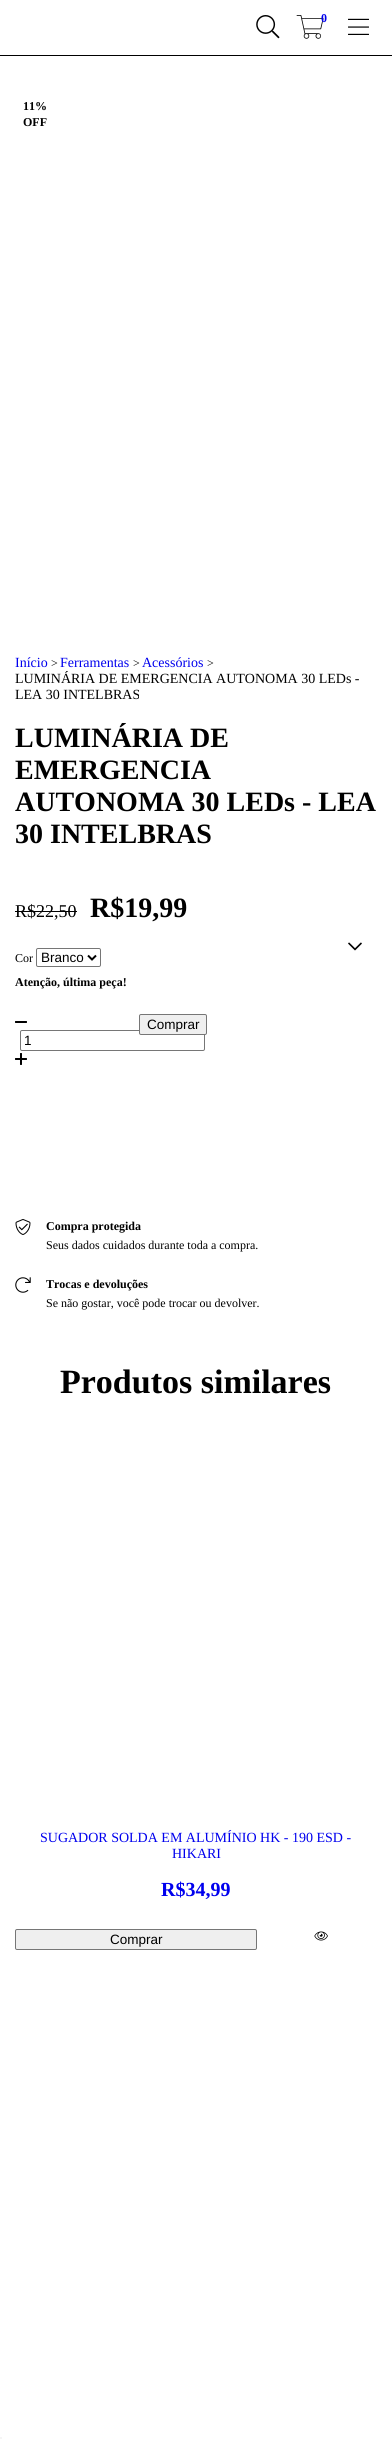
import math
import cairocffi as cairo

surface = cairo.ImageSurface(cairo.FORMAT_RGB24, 392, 2439)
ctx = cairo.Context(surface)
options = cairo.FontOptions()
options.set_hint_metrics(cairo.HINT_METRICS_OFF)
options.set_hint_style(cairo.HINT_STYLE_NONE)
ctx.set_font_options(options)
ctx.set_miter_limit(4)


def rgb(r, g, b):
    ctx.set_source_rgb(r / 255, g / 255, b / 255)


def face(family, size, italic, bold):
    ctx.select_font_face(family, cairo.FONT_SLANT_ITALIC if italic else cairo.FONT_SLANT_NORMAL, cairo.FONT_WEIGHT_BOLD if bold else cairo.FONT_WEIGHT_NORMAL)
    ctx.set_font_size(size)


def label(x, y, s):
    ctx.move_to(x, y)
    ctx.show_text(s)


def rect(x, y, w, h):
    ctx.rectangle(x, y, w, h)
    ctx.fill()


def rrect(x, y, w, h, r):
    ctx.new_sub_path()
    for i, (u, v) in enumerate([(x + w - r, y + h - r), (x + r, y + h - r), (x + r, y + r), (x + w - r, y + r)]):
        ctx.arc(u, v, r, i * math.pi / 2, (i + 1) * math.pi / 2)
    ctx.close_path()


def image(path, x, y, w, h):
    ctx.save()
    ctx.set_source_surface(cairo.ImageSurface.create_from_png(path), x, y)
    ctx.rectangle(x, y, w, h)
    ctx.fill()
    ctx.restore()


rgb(255, 255, 255)
ctx.paint()
image('image0.png', 256, 15, 24, 24)
image('image1.png', 296, 15, 28, 24)
face('Liberation Serif', 12, 0, 1)
rgb(0, 0, 238)
label(321, 22, '0')
image('image2.png', 348, 18, 21, 17)
rgb(0, 0, 0)
rect(0, 55, 392, 1)
label(23, 110, '11%')
label(23, 126, 'OFF')
face('Liberation Serif', 14, 0, 0)
rgb(0, 0, 238)
label(15, 667, 'Início')
face('Liberation Serif', 12, 0, 0)
rgb(0, 0, 0)
label(51, 667, '>')
face('Liberation Serif', 14, 0, 0)
rgb(0, 0, 238)
label(60, 667, 'Ferramentas')
face('Liberation Serif', 12, 0, 0)
rgb(0, 0, 0)
label(133, 667, '>')
face('Liberation Serif', 14, 0, 0)
rgb(0, 0, 238)
label(142, 667, 'Acessórios')
face('Liberation Serif', 12, 0, 0)
rgb(0, 0, 0)
label(207, 667, '>')
face('Liberation Serif', 14, 0, 0)
label(15, 683, 'LUMINÁRIA DE EMERGENCIA AUTONOMA 30 LEDs -')
label(15, 699, 'LEA 30 INTELBRAS')
face('Liberation Serif', 28, 0, 1)
label(15, 747, 'LUMINÁRIA DE')
label(15, 779, 'EMERGENCIA')
label(15, 811, 'AUTONOMA 30 LEDs - LEA')
label(15, 843, '30 INTELBRAS')
face('Liberation Serif', 18, 0, 0)
label(15, 917, 'R$22,50')
rect(15, 911, 62, 1)
face('Liberation Serif', 28, 0, 1)
label(90, 917, 'R$19,99')
image('image3.png', 348, 942, 14, 9)
face('Liberation Serif', 12, 0, 0)
label(15, 962, 'Cor')
rrect(36.5, 948.5, 64, 18, 1.5)
rgb(118, 118, 118)
ctx.set_line_width(1)
ctx.stroke()
ctx.new_path()
ctx.move_to(88, 955.5)
ctx.line_to(92, 959.5)
ctx.line_to(96, 955.5)
rgb(0, 0, 0)
ctx.set_line_width(2)
ctx.stroke()
face('Liberation Sans', 13.5, 0, 0)
label(41, 962, 'Branco')
face('Liberation Serif', 12, 0, 1)
label(15, 986, 'Atenção, última peça!')
rrect(20.5, 1030.5, 184, 20, 1.5)
rgb(118, 118, 118)
ctx.set_line_width(1)
ctx.stroke()
rgb(239, 239, 239)
rrect(139.5, 1014.5, 67, 20, 1.5)
ctx.fill_preserve()
rgb(118, 118, 118)
ctx.stroke()
face('Liberation Sans', 13.5, 0, 0)
rgb(0, 0, 0)
label(147, 1029, 'Comprar')
image('image4.png', 15, 1021, 12, 2)
label(24, 1045, '1')
image('image5.png', 15, 1053, 12, 12)
image('image6.png', 15, 1219, 16, 16)
face('Liberation Serif', 12, 0, 1)
label(46, 1230, 'Compra protegida')
face('Liberation Serif', 12, 0, 0)
label(46, 1249, 'Seus dados cuidados durante toda a compra.')
image('image7.png', 15, 1277, 16, 16)
face('Liberation Serif', 12, 0, 1)
label(46, 1288, 'Trocas e devoluções')
face('Liberation Serif', 12, 0, 0)
label(46, 1307, 'Se não gostar, você pode trocar ou devolver.')
face('Liberation Serif', 34, 0, 1)
label(60, 1393, 'Produtos similares')
face('Liberation Serif', 14, 0, 0)
rgb(0, 0, 238)
label(40, 1842, 'SUGADOR SOLDA EM ALUMÍNIO HK - 190 ESD -')
label(172, 1858, 'HIKARI')
face('Liberation Serif', 20, 0, 1)
label(161, 1896, 'R$34,99')
rgb(239, 239, 239)
rrect(15.5, 1929.5, 241, 20, 1.5)
ctx.fill_preserve()
rgb(118, 118, 118)
ctx.stroke()
face('Liberation Sans', 13.5, 0, 0)
rgb(0, 0, 0)
label(110, 1944, 'Comprar')
image('image8.png', 314, 1931, 14, 10)
rgb(245, 245, 245)
rect(0, 2437, 2, 2)
surface.write_to_png('render.png')
